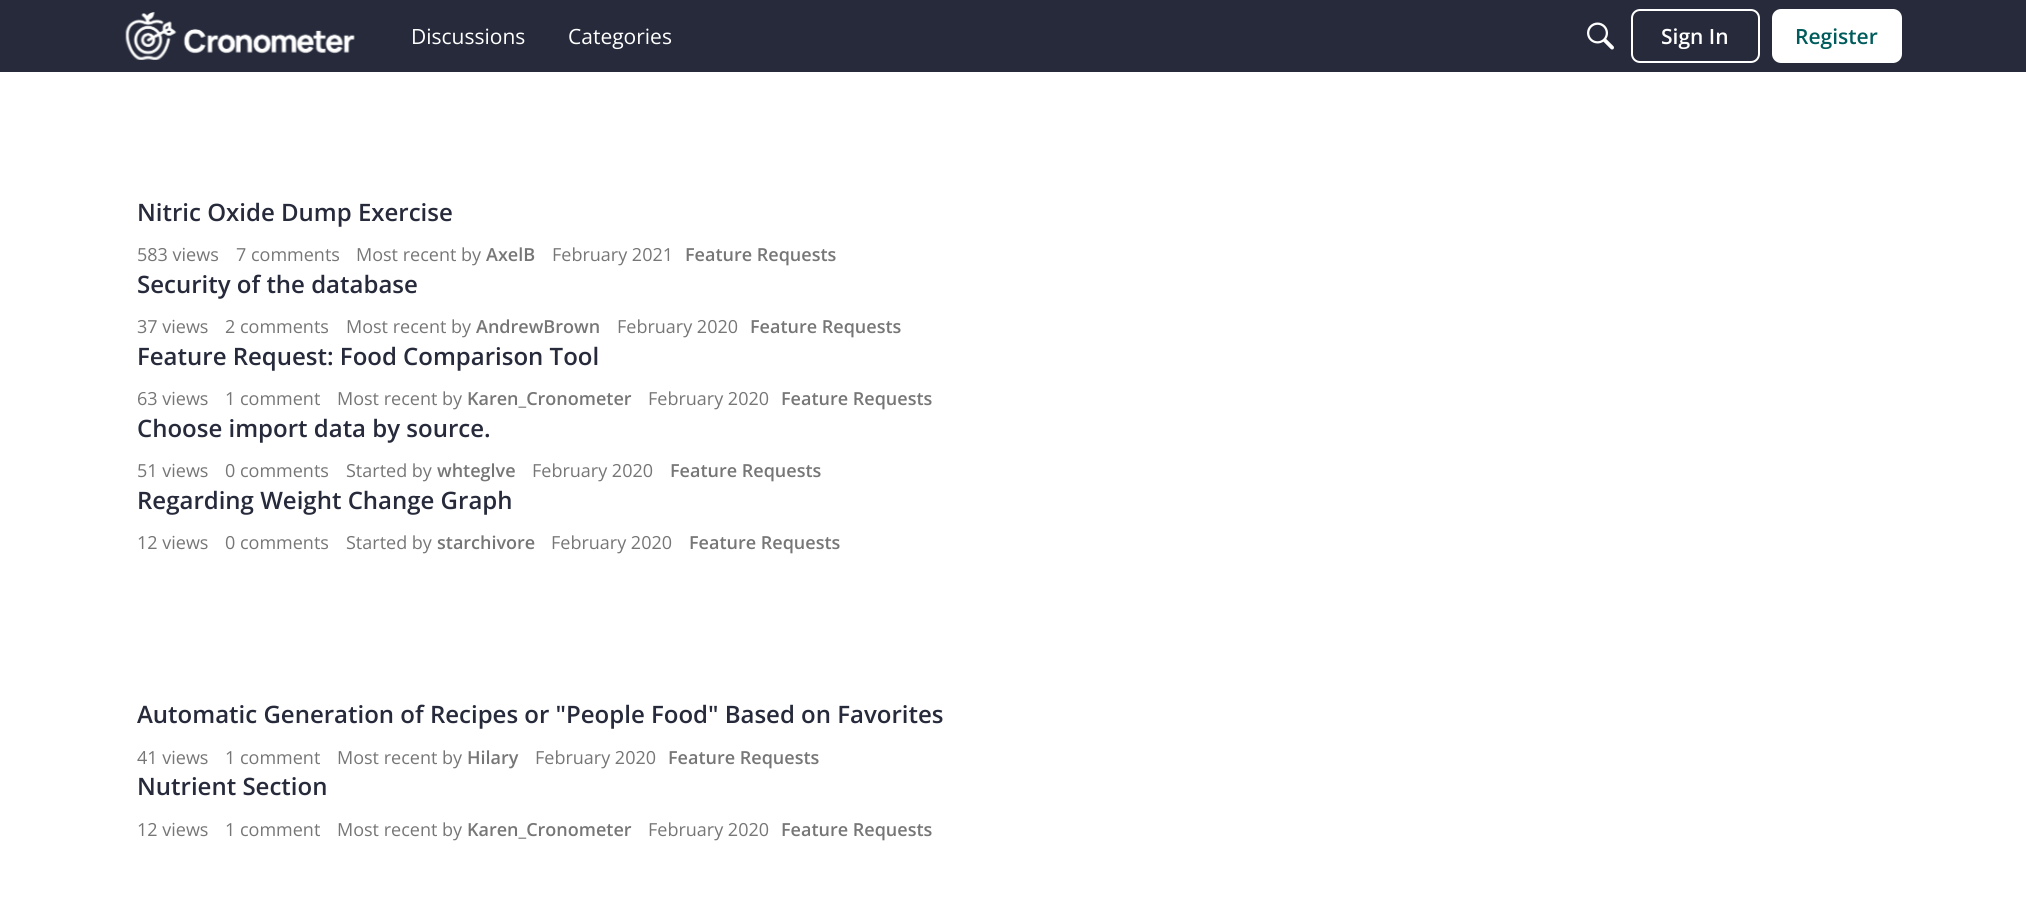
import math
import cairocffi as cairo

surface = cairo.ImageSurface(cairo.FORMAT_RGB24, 2026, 923)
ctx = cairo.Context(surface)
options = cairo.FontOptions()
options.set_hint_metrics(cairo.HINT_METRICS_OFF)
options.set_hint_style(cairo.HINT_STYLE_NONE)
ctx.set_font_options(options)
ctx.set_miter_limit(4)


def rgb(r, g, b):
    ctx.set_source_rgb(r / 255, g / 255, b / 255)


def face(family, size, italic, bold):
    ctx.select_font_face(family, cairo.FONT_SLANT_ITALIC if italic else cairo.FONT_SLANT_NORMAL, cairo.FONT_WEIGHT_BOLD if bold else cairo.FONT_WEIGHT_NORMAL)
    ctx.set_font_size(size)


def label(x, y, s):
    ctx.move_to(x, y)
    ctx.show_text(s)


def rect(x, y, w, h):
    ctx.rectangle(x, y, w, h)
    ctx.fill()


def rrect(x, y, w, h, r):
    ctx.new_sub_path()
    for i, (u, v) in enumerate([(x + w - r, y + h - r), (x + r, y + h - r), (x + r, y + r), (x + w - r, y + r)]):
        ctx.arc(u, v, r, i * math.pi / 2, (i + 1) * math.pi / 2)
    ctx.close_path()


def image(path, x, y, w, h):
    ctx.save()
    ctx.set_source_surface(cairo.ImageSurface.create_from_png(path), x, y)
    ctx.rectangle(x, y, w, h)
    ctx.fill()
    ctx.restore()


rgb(255, 255, 255)
ctx.paint()
rgb(38, 42, 59)
rect(0, 0, 2026, 72)
image('image0.png', 125, 12, 230, 48)
face('Open Sans', 21, 0, 0)
rgb(255, 255, 255)
label(411, 44, 'Discussions')
label(568, 44, 'Categories')
image('image1.png', 1587, 22, 27, 28)
rrect(1632, 10, 127, 52, 8)
ctx.stroke()
face('Open Sans SemiBold', 21, 0, 0)
label(1661, 44, 'Sign In')
rrect(1773, 10, 128, 52, 8)
ctx.fill_preserve()
ctx.stroke()
rgb(0, 92, 92)
label(1795, 44, 'Register')
face('Open Sans SemiBold', 24, 0, 0)
rgb(38, 42, 59)
label(137, 221, 'Nitric Oxide Dump Exercise')
face('Open Sans', 18, 0, 0)
rgb(118, 118, 118)
label(137, 261, '583 views')
label(236, 261, '7 comments')
label(356, 261, 'Most recent by')
face('Open Sans SemiBold', 18, 0, 0)
label(486, 261, 'AxelB')
face('Open Sans', 18, 0, 0)
label(552, 261, 'February 2021')
face('Open Sans SemiBold', 18, 0, 0)
label(685, 261, 'Feature Requests')
face('Open Sans SemiBold', 24, 0, 0)
rgb(38, 42, 59)
label(137, 293, 'Security of the database')
face('Open Sans', 18, 0, 0)
rgb(118, 118, 118)
label(137, 333, '37 views')
label(225, 333, '2 comments')
label(346, 333, 'Most recent by')
face('Open Sans SemiBold', 18, 0, 0)
label(476, 333, 'AndrewBrown')
face('Open Sans', 18, 0, 0)
label(617, 333, 'February 2020')
face('Open Sans SemiBold', 18, 0, 0)
label(750, 333, 'Feature Requests')
face('Open Sans SemiBold', 24, 0, 0)
rgb(38, 42, 59)
label(137, 365, 'Feature Request: Food Comparison Tool')
face('Open Sans', 18, 0, 0)
rgb(118, 118, 118)
label(137, 405, '63 views')
label(225, 405, '1 comment')
label(337, 405, 'Most recent by')
face('Open Sans SemiBold', 18, 0, 0)
label(467, 405, 'Karen_Cronometer')
face('Open Sans', 18, 0, 0)
label(648, 405, 'February 2020')
face('Open Sans SemiBold', 18, 0, 0)
label(781, 405, 'Feature Requests')
face('Open Sans SemiBold', 24, 0, 0)
rgb(38, 42, 59)
label(137, 437, 'Choose import data by source.')
face('Open Sans', 18, 0, 0)
rgb(118, 118, 118)
label(137, 477, '51 views')
label(225, 477, '0 comments')
label(346, 477, 'Started by')
face('Open Sans SemiBold', 18, 0, 0)
label(437, 477, 'whteglve')
face('Open Sans', 18, 0, 0)
label(532, 477, 'February 2020')
face('Open Sans SemiBold', 18, 0, 0)
label(670, 477, 'Feature Requests')
face('Open Sans SemiBold', 24, 0, 0)
rgb(38, 42, 59)
label(137, 509, 'Regarding Weight Change Graph')
face('Open Sans', 18, 0, 0)
rgb(118, 118, 118)
label(137, 549, '12 views')
label(225, 549, '0 comments')
label(346, 549, 'Started by')
face('Open Sans SemiBold', 18, 0, 0)
label(437, 549, 'starchivore')
face('Open Sans', 18, 0, 0)
label(551, 549, 'February 2020')
face('Open Sans SemiBold', 18, 0, 0)
label(689, 549, 'Feature Requests')
face('Open Sans SemiBold', 24, 0, 0)
rgb(38, 42, 59)
label(137, 723, 'Automatic Generation of Recipes or "People Food" Based on Favorites')
face('Open Sans', 18, 0, 0)
rgb(118, 118, 118)
label(137, 764, '41 views')
label(225, 764, '1 comment')
label(337, 764, 'Most recent by')
face('Open Sans SemiBold', 18, 0, 0)
label(467, 764, 'Hilary')
face('Open Sans', 18, 0, 0)
label(535, 764, 'February 2020')
face('Open Sans SemiBold', 18, 0, 0)
label(668, 764, 'Feature Requests')
face('Open Sans SemiBold', 24, 0, 0)
rgb(38, 42, 59)
label(137, 795, 'Nutrient Section')
face('Open Sans', 18, 0, 0)
rgb(118, 118, 118)
label(137, 836, '12 views')
label(225, 836, '1 comment')
label(337, 836, 'Most recent by')
face('Open Sans SemiBold', 18, 0, 0)
label(467, 836, 'Karen_Cronometer')
face('Open Sans', 18, 0, 0)
label(648, 836, 'February 2020')
face('Open Sans SemiBold', 18, 0, 0)
label(781, 836, 'Feature Requests')
surface.write_to_png('render.png')
